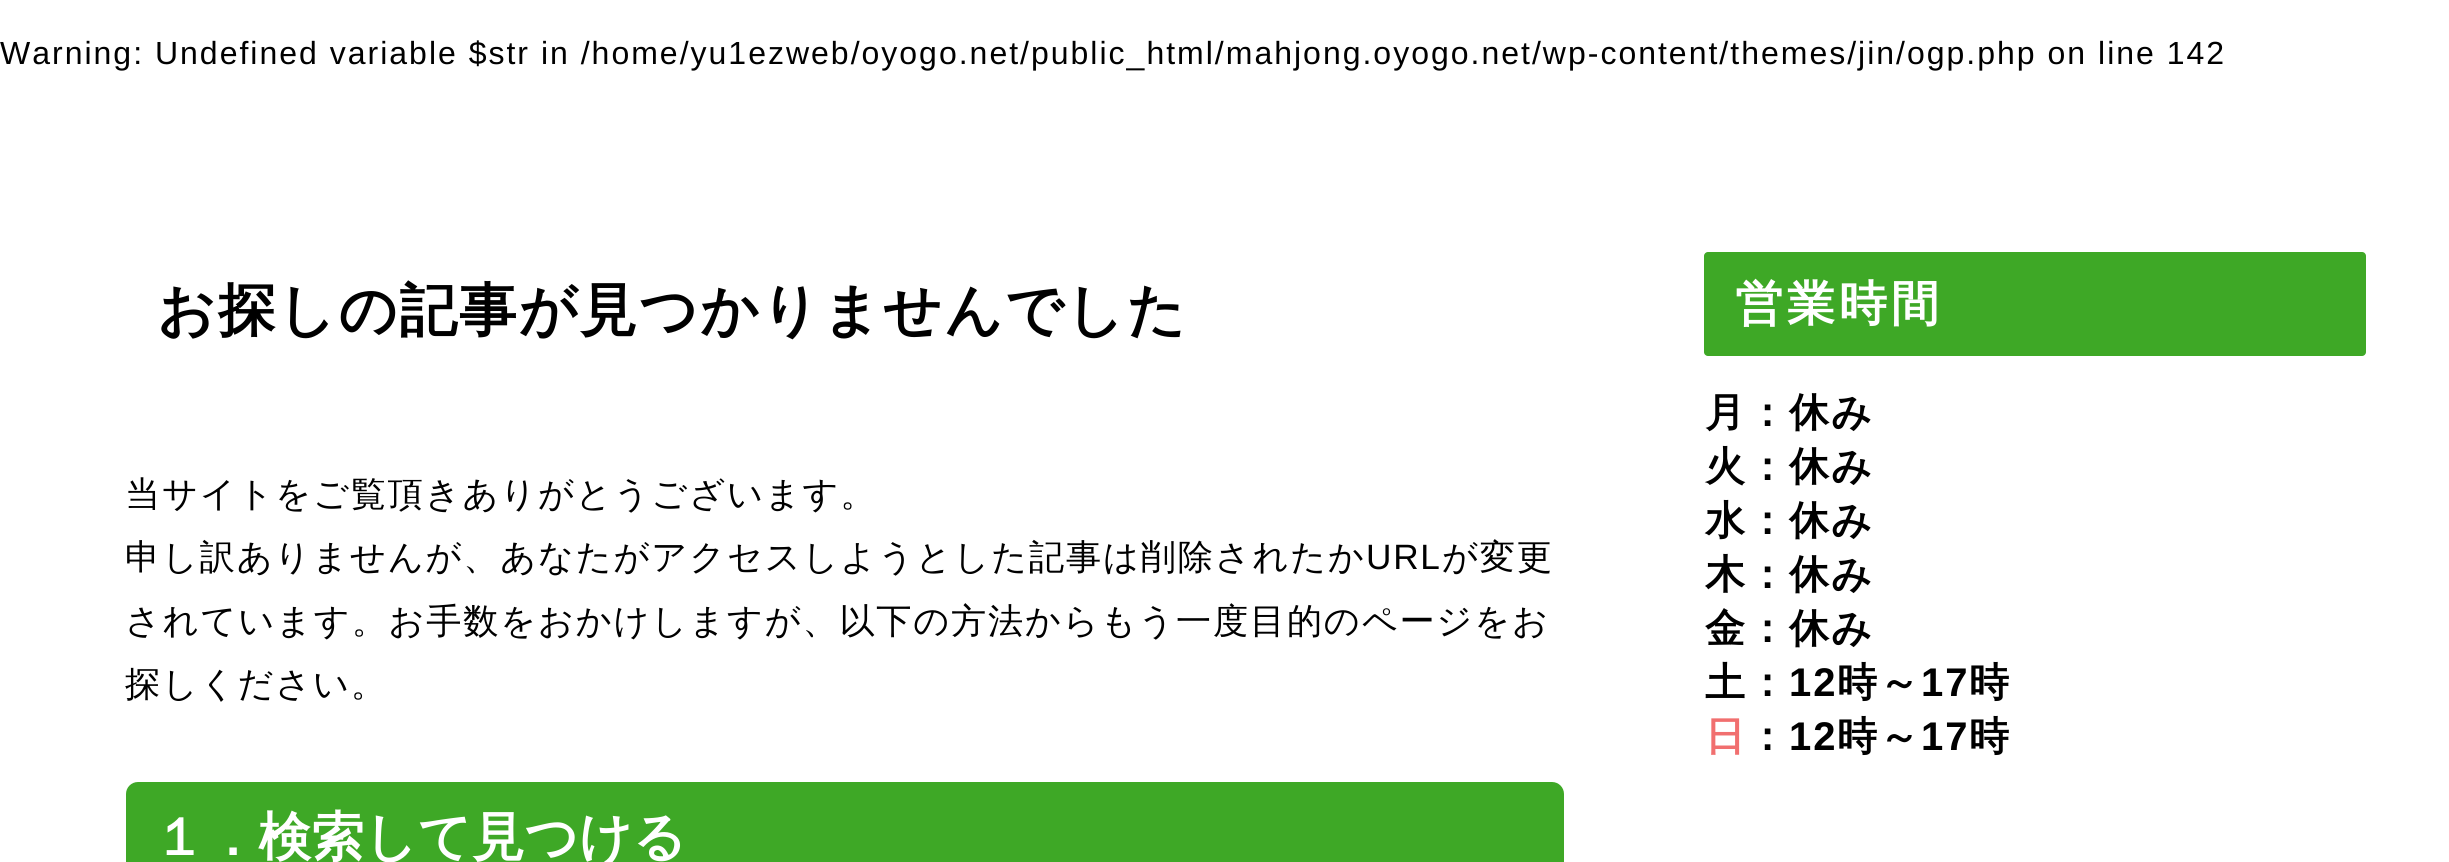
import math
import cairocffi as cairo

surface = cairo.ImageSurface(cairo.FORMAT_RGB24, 2449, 862)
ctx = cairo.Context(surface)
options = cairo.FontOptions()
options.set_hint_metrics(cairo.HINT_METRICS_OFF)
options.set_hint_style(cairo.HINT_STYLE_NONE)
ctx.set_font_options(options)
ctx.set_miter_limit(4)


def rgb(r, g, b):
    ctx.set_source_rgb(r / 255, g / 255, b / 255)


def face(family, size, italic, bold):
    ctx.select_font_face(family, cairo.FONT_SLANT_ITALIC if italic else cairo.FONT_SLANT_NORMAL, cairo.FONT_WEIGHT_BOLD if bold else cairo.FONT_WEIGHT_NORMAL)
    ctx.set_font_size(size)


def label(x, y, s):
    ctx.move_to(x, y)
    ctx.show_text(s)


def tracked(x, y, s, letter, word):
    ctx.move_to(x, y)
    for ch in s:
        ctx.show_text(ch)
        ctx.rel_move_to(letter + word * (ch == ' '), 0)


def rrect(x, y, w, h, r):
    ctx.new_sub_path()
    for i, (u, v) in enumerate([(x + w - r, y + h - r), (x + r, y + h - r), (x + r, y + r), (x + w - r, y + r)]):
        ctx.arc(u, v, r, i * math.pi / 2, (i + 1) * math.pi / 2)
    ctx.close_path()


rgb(255, 255, 255)
ctx.paint()
face('Liberation Sans', 32, 0, 0)
rgb(0, 0, 0)
tracked(0, 64, 'Warning: Undefined variable $str in /home/yu1ezweb/oyogo.net/public_html/mahjong.oyogo.net/wp-content/themes/jin/ogp.php on line 142', 2, 0)
face('WenQuanYi Zen Hei', 57.6, 0, 1)
tracked(157, 330, 'お探しの記事が見つかりませんでした', 2, 0)
face('WenQuanYi Zen Hei Medium', 35.2, 0, 0)
tracked(125, 506, '当サイトをご覧頂きありがとうございます。', 1.75, 0)
tracked(125, 569, '申し訳ありませんが、あなたがアクセスしようとした記事は削除されたか', 1.75, 0)
face('Liberation Sans', 35.2, 0, 0)
tracked(1366, 569, 'URL', 1.75, 0)
face('WenQuanYi Zen Hei Medium', 35.2, 0, 0)
tracked(1442, 569, 'が変更', 1.75, 0)
tracked(125, 633, 'されています。お手数をおかけしますが、以下の方法からもう一度目的のページをお', 1.75, 0)
tracked(125, 696, '探しください。', 1.75, 0)
rgb(62, 168, 38)
rrect(126, 782, 1438, 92, 12)
ctx.fill()
face('WenQuanYi Zen Hei', 52.75, 0, 1)
rgb(255, 255, 255)
label(153, 855, '１．検索して見つける')
rgb(62, 168, 38)
rrect(1704, 252, 662, 104, 4)
ctx.fill()
face('WenQuanYi Zen Hei', 48, 0, 1)
rgb(255, 255, 255)
tracked(1735, 320, '営業時間', 4, 0)
face('WenQuanYi Zen Hei', 40, 0, 1)
rgb(0, 0, 0)
tracked(1705, 426, '月：休み', 2, 0)
tracked(1705, 480, '火：休み', 2, 0)
tracked(1705, 534, '水：休み', 2, 0)
tracked(1705, 588, '木：休み', 2, 0)
tracked(1705, 642, '金：休み', 2, 0)
tracked(1705, 696, '土：', 2, 0)
face('Liberation Sans', 40, 0, 1)
tracked(1789, 696, '12', 2, 0)
face('WenQuanYi Zen Hei', 40, 0, 1)
tracked(1837, 696, '時～', 2, 0)
face('Liberation Sans', 40, 0, 1)
tracked(1921, 696, '17', 2, 0)
face('WenQuanYi Zen Hei', 40, 0, 1)
tracked(1969, 696, '時', 2, 0)
rgb(241, 111, 111)
tracked(1705, 750, '日', 2, 0)
rgb(0, 0, 0)
tracked(1747, 750, '：', 2, 0)
face('Liberation Sans', 40, 0, 1)
tracked(1789, 750, '12', 2, 0)
face('WenQuanYi Zen Hei', 40, 0, 1)
tracked(1837, 750, '時～', 2, 0)
face('Liberation Sans', 40, 0, 1)
tracked(1921, 750, '17', 2, 0)
face('WenQuanYi Zen Hei', 40, 0, 1)
tracked(1969, 750, '時', 2, 0)
surface.write_to_png('render.png')
